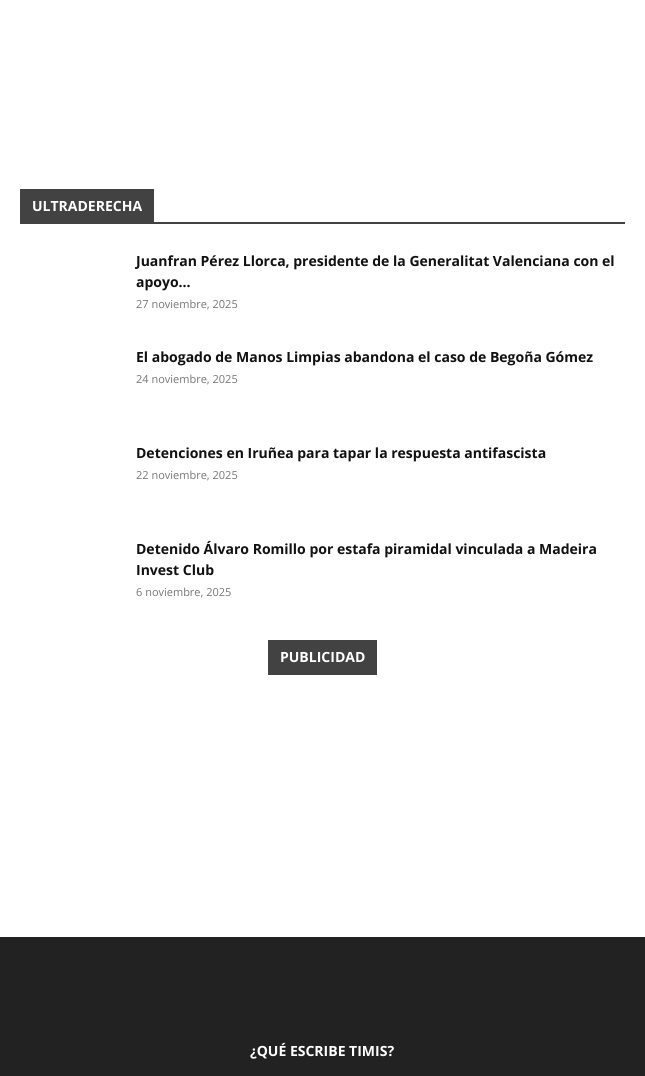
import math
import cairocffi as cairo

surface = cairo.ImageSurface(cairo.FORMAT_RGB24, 645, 1076)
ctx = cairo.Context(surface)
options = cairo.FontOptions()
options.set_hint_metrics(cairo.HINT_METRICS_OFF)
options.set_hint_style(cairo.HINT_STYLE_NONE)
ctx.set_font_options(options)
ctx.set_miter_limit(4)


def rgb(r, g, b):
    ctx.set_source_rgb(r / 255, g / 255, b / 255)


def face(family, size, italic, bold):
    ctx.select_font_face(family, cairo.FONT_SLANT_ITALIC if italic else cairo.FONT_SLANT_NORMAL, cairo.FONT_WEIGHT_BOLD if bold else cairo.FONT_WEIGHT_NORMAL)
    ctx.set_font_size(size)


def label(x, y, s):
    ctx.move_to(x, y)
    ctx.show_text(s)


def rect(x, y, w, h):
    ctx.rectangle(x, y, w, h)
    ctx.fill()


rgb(255, 255, 255)
ctx.paint()
rgb(66, 66, 66)
rect(20, 222, 605, 2)
rect(20, 189, 134, 33)
face('Open Sans', 14, 0, 1)
rgb(255, 255, 255)
label(32, 211, 'ULTRADERECHA')
rgb(17, 17, 17)
label(136, 266, 'Juanfran Pérez Llorca, presidente de la Generalitat Valenciana con el')
label(136, 287, 'apoyo...')
face('Open Sans', 11, 0, 0)
rgb(118, 118, 118)
label(136, 308, '27 noviembre, 2025')
face('Open Sans', 14, 0, 1)
rgb(17, 17, 17)
label(136, 362, 'El abogado de Manos Limpias abandona el caso de Begoña Gómez')
face('Open Sans', 11, 0, 0)
rgb(118, 118, 118)
label(136, 383, '24 noviembre, 2025')
face('Open Sans', 14, 0, 1)
rgb(17, 17, 17)
label(136, 458, 'Detenciones en Iruñea para tapar la respuesta antifascista')
face('Open Sans', 11, 0, 0)
rgb(118, 118, 118)
label(136, 479, '22 noviembre, 2025')
face('Open Sans', 14, 0, 1)
rgb(17, 17, 17)
label(136, 554, 'Detenido Álvaro Romillo por estafa piramidal vinculada a Madeira')
label(136, 575, 'Invest Club')
face('Open Sans', 11, 0, 0)
rgb(118, 118, 118)
label(136, 596, '6 noviembre, 2025')
rgb(66, 66, 66)
rect(268, 640, 109, 35)
face('Open Sans', 14, 0, 1)
rgb(255, 255, 255)
label(280, 662, 'PUBLICIDAD')
rgb(34, 34, 34)
rect(0, 937, 645, 139)
rgb(255, 255, 255)
label(250, 1056, '¿QUÉ ESCRIBE TIMIS?')
surface.write_to_png('render.png')
